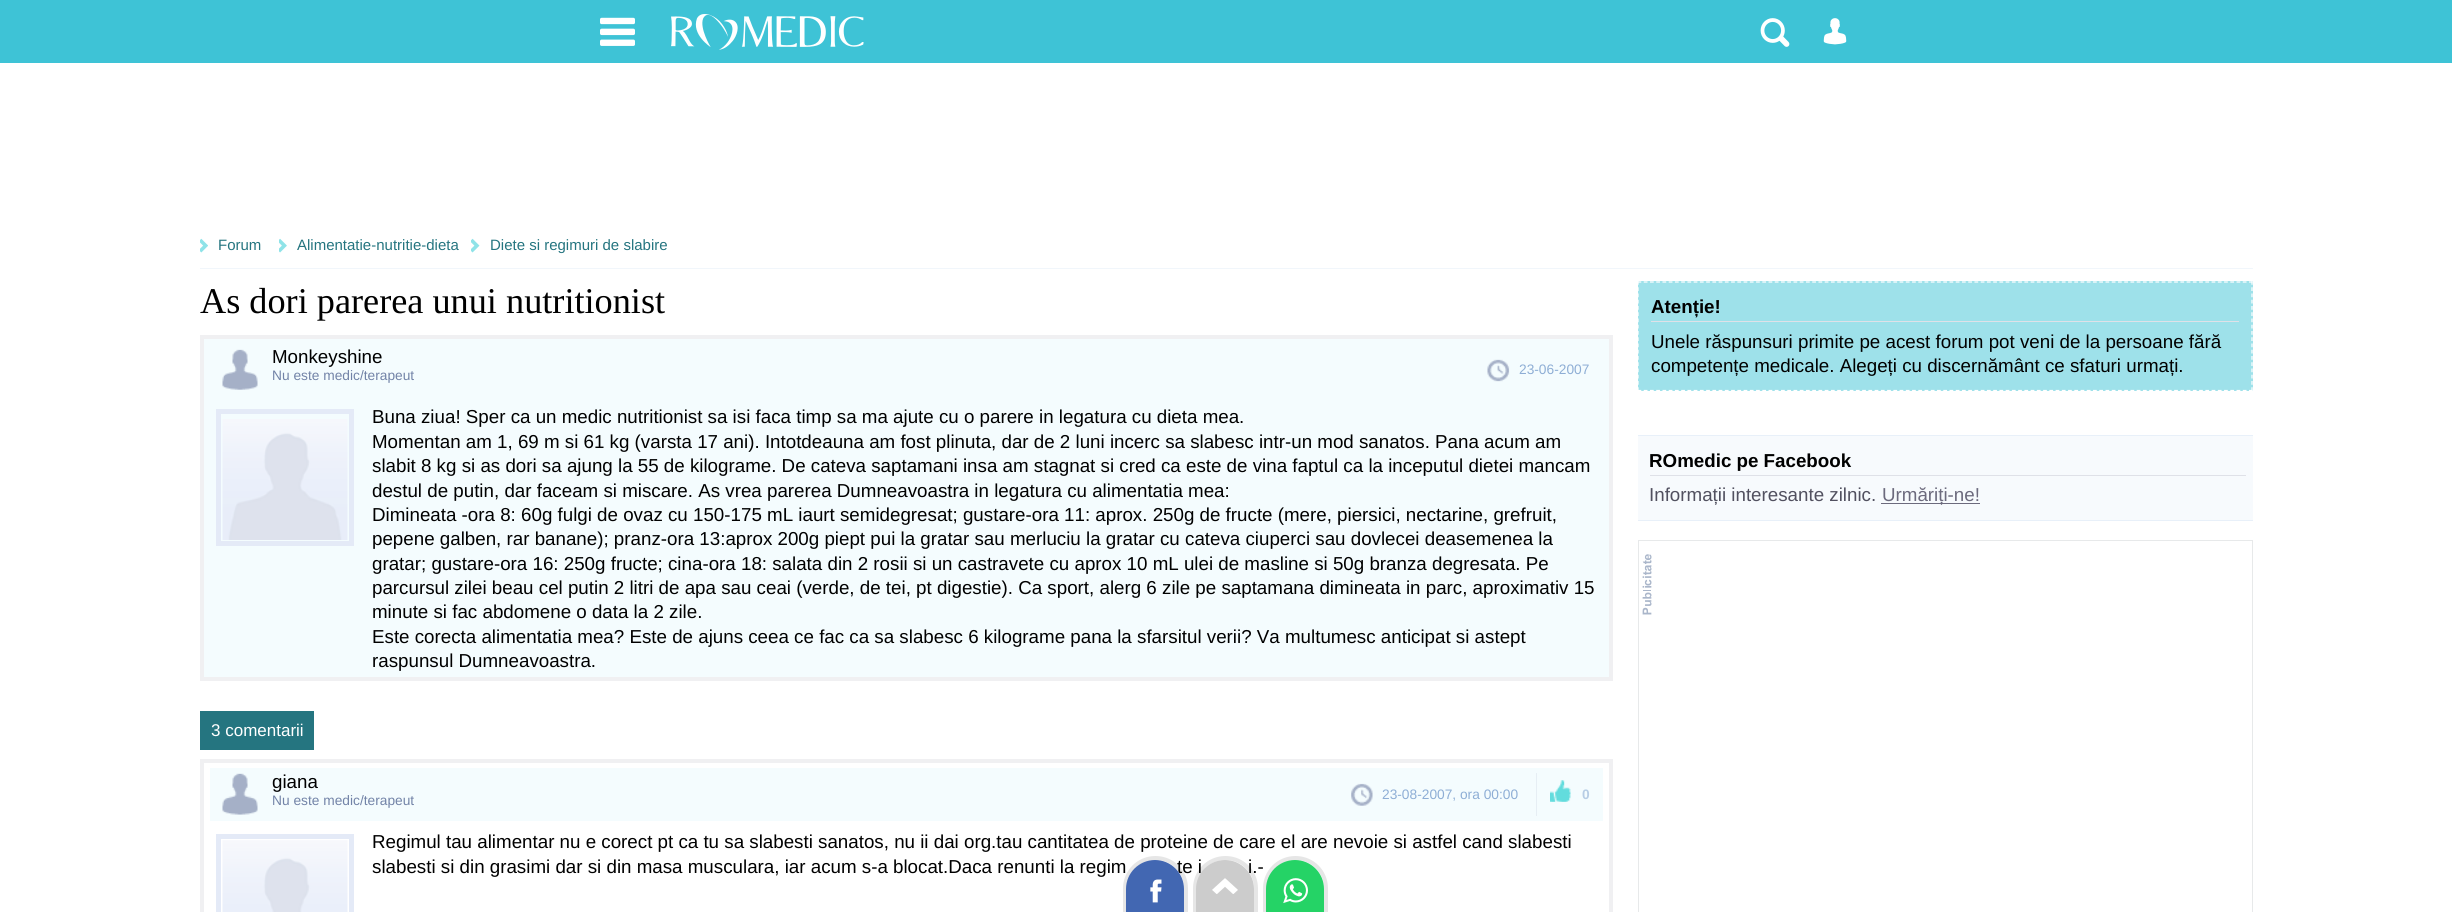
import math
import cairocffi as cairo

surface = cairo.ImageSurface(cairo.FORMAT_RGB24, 2452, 912)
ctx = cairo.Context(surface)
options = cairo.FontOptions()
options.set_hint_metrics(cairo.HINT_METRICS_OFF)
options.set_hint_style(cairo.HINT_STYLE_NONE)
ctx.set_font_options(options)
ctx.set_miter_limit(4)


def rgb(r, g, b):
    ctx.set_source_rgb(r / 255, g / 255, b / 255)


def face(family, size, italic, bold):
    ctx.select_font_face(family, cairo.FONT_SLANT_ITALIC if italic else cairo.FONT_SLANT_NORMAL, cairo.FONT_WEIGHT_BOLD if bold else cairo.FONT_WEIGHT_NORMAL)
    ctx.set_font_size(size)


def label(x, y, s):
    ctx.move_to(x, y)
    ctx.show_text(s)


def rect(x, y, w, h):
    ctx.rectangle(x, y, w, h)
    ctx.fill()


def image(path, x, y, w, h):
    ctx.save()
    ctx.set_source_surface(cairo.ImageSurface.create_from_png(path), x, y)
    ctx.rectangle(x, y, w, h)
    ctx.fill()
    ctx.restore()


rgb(255, 255, 255)
ctx.paint()
rgb(62, 195, 214)
rect(0, 0, 2452, 63)
image('image0.png', 600, 17, 35, 29)
image('image1.png', 671, 14, 193, 36)
image('image2.png', 1760, 18, 30, 29)
image('image3.png', 1823, 18, 24, 27)
rgb(241, 246, 251)
rect(200, 268, 2053, 1)
image('image4.png', 200, 238, 8, 15)
face('Liberation Sans', 15, 0, 0)
rgb(37, 117, 128)
label(218, 250, 'Forum')
image('image5.png', 279, 238, 8, 15)
label(297, 250, 'Alimentatie-nutritie-dieta')
image('image6.png', 471, 238, 9, 15)
label(490, 250, 'Diete si regimuri de slabire')
face('Liberation Serif', 36.25, 0, 0)
rgb(0, 0, 0)
label(200, 313, 'As dori parerea unui nutritionist')
rgb(244, 252, 254)
ctx.rectangle(202, 337, 1409, 342)
ctx.fill_preserve()
rgb(240, 240, 242)
ctx.set_line_width(4)
ctx.stroke()
image('image7.png', 222, 349, 36, 41)
face('Liberation Sans', 18.75, 0, 0)
rgb(0, 0, 0)
label(272, 363, 'Monkeyshine')
face('Liberation Sans', 13.75, 0, 0)
rgb(114, 131, 167)
label(272, 380, 'Nu este medic/terapeut')
image('image8.png', 1487, 359, 23, 23)
rgb(142, 174, 213)
label(1519, 374, '23-06-2007')
ctx.rectangle(218.5, 411.5, 133, 132)
rgb(228, 234, 247)
ctx.set_line_width(5)
ctx.stroke()
image('image9.png', 222, 419, 126, 121)
face('Liberation Sans', 18.75, 0, 0)
rgb(0, 0, 0)
label(372, 423, 'Buna ziua! Sper ca un medic nutritionist sa isi faca timp sa ma ajute cu o parere in legatura cu dieta mea.')
label(372, 448, 'Momentan am 1, 69 m si 61 kg (varsta 17 ani). Intotdeauna am fost plinuta, dar de 2 luni incerc sa slabesc intr-un mod sanatos. Pana acum am')
label(372, 472, 'slabit 8 kg si as dori sa ajung la 55 de kilograme. De cateva saptamani insa am stagnat si cred ca este de vina faptul ca la inceputul dietei mancam')
label(372, 497, 'destul de putin, dar faceam si miscare. As vrea parerea Dumneavoastra in legatura cu alimentatia mea:')
label(372, 521, 'Dimineata -ora 8: 60g fulgi de ovaz cu 150-175 mL iaurt semidegresat; gustare-ora 11: aprox. 250g de fructe (mere, piersici, nectarine, grefruit,')
label(372, 545, 'pepene galben, rar banane); pranz-ora 13:aprox 200g piept pui la gratar sau merluciu la gratar cu cateva ciuperci sau dovlecei deasemenea la')
label(372, 570, 'gratar; gustare-ora 16: 250g fructe; cina-ora 18: salata din 2 rosii si un castravete cu aprox 10 mL ulei de masline si 50g branza degresata. Pe')
label(372, 594, 'parcursul zilei beau cel putin 2 litri de apa sau ceai (verde, de tei, pt digestie). Ca sport, alerg 6 zile pe saptamana dimineata in parc, aproximativ 15')
label(372, 618, 'minute si fac abdomene o data la 2 zile.')
label(372, 643, 'Este corecta alimentatia mea? Este de ajuns ceea ce fac ca sa slabesc 6 kilograme pana la sfarsitul verii? Va multumesc anticipat si astept')
label(372, 667, 'raspunsul Dumneavoastra.')
rgb(37, 117, 128)
rect(200, 711, 114, 39)
face('Liberation Sans', 17, 0, 0)
rgb(255, 255, 255)
label(211, 736, '3 comentarii')
ctx.rectangle(202, 761, 1409, 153)
rgb(240, 240, 242)
ctx.set_line_width(4)
ctx.stroke()
rgb(244, 252, 254)
rect(210, 768, 1393, 53)
image('image10.png', 222, 773, 36, 42)
face('Liberation Sans', 18.75, 0, 0)
rgb(0, 0, 0)
label(272, 788, 'giana')
face('Liberation Sans', 13.75, 0, 0)
rgb(114, 131, 167)
label(272, 805, 'Nu este medic/terapeut')
image('image11.png', 1351, 783, 22, 23)
rgb(142, 174, 213)
label(1382, 799, '23-08-2007, ora 00:00')
image('image12.png', 1550, 780, 21, 22)
rgb(230, 238, 244)
rect(1536, 773, 1, 43)
face('Liberation Sans', 13.75, 0, 1)
rgb(183, 205, 229)
label(1582, 799, '0')
ctx.rectangle(218.5, 836.5, 133, 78)
rgb(228, 234, 247)
ctx.set_line_width(5)
ctx.stroke()
image('image13.png', 222, 840, 126, 72)
face('Liberation Sans', 18.75, 0, 0)
rgb(0, 0, 0)
label(372, 848, 'Regimul tau alimentar nu e corect pt ca tu sa slabesti sanatos, nu ii dai org.tau cantitatea de proteine de care el are nevoie si astfel cand slabesti')
label(372, 873, 'slabesti si din grasimi dar si din masa musculara, iar acum s-a blocat.Daca renunti la regim')
label(1177, 873, 'te i')
label(1248, 873, 'i.-')
rgb(158, 225, 234)
rect(1638, 281, 615, 110)
ctx.new_path()
ctx.move_to(1637.5, 282)
ctx.line_to(2252.5, 282)
rgb(255, 255, 255)
ctx.set_line_width(1.2)
ctx.set_dash([3.75, 2.49])
ctx.stroke()
ctx.new_path()
ctx.move_to(2252, 281)
ctx.line_to(2252, 391)
ctx.set_dash([3.75, 2.5])
ctx.stroke()
ctx.new_path()
ctx.move_to(1637.5, 390.5)
ctx.line_to(2252.5, 390.5)
ctx.set_dash([3.75, 2.49])
ctx.stroke()
ctx.new_path()
ctx.move_to(1638, 281)
ctx.line_to(1638, 391)
ctx.set_dash([3.75, 2.5])
ctx.stroke()
rgb(223, 225, 232)
rect(1651, 321, 588, 1)
face('Liberation Sans', 18.75, 0, 1)
rgb(0, 0, 0)
label(1651, 313, 'Atenție!')
face('Liberation Sans', 18.75, 0, 0)
label(1651, 348, 'Unele răspunsuri primite pe acest forum pot veni de la persoane fără')
label(1651, 372, 'competențe medicale. Alegeți cu discernământ ce sfaturi urmați.')
rgb(247, 250, 253)
rect(1638, 436, 615, 84)
rgb(232, 240, 249)
rect(1638, 435, 615, 1)
rect(1638, 520, 615, 1)
rgb(223, 225, 232)
rect(1650, 475, 596, 1)
face('Liberation Sans', 18.75, 0, 1)
rgb(0, 0, 0)
label(1649, 467, 'ROmedic pe Facebook')
face('Liberation Sans', 18.75, 0, 0)
rgb(81, 80, 95)
label(1649, 501, 'Informații interesante zilnic.')
rgb(108, 106, 125)
rect(1881, 503, 99, 1)
label(1882, 501, 'Urmăriți-ne!')
image('image14.png', 1642, 554, 10, 61)
ctx.rectangle(1638.5, 540.5, 614, 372)
rgb(231, 233, 234)
ctx.set_line_width(1)
ctx.set_dash([])
ctx.stroke()
ctx.new_path()
ctx.move_to(1155.5, 858)
ctx.curve_to(1172.5, 858, 1186, 871.5, 1186, 888.5)
ctx.line_to(1186, 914)
ctx.line_to(1125, 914)
ctx.line_to(1125, 888.5)
ctx.curve_to(1125, 871.5, 1138.5, 858, 1155.5, 858)
ctx.close_path()
ctx.set_source_rgba(0, 0, 0, 0.1)
ctx.set_line_width(4)
ctx.stroke()
rgb(66, 103, 178)
ctx.new_path()
ctx.move_to(1155, 860)
ctx.curve_to(1171, 860, 1184, 873, 1184, 889)
ctx.line_to(1184, 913)
ctx.line_to(1126, 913)
ctx.line_to(1126, 889)
ctx.curve_to(1126, 873, 1139, 860, 1155, 860)
ctx.close_path()
ctx.fill()
image('image15.png', 1150, 879, 12, 24)
ctx.new_path()
ctx.move_to(1225.5, 858)
ctx.curve_to(1242.5, 858, 1256, 871.5, 1256, 888.5)
ctx.line_to(1256, 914)
ctx.line_to(1195, 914)
ctx.line_to(1195, 888.5)
ctx.curve_to(1195, 871.5, 1208.5, 858, 1225.5, 858)
ctx.close_path()
ctx.set_source_rgba(0, 0, 0, 0.1)
ctx.stroke()
rgb(204, 204, 204)
ctx.new_path()
ctx.move_to(1225, 860)
ctx.curve_to(1241, 860, 1254, 873, 1254, 889)
ctx.line_to(1254, 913)
ctx.line_to(1196, 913)
ctx.line_to(1196, 889)
ctx.curve_to(1196, 873, 1209, 860, 1225, 860)
ctx.close_path()
ctx.fill()
image('image16.png', 1212, 878, 26, 16)
ctx.new_path()
ctx.move_to(1295.5, 858)
ctx.curve_to(1312.5, 858, 1326, 871.5, 1326, 888.5)
ctx.line_to(1326, 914)
ctx.line_to(1265, 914)
ctx.line_to(1265, 888.5)
ctx.curve_to(1265, 871.5, 1278.5, 858, 1295.5, 858)
ctx.close_path()
rgb(230, 230, 230)
ctx.stroke()
rgb(37, 211, 102)
ctx.new_path()
ctx.move_to(1295, 860)
ctx.curve_to(1311, 860, 1324, 873, 1324, 889)
ctx.line_to(1324, 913)
ctx.line_to(1266, 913)
ctx.line_to(1266, 889)
ctx.curve_to(1266, 873, 1279, 860, 1295, 860)
ctx.close_path()
ctx.fill()
image('image17.png', 1283, 878, 25, 26)
surface.write_to_png('render.png')
